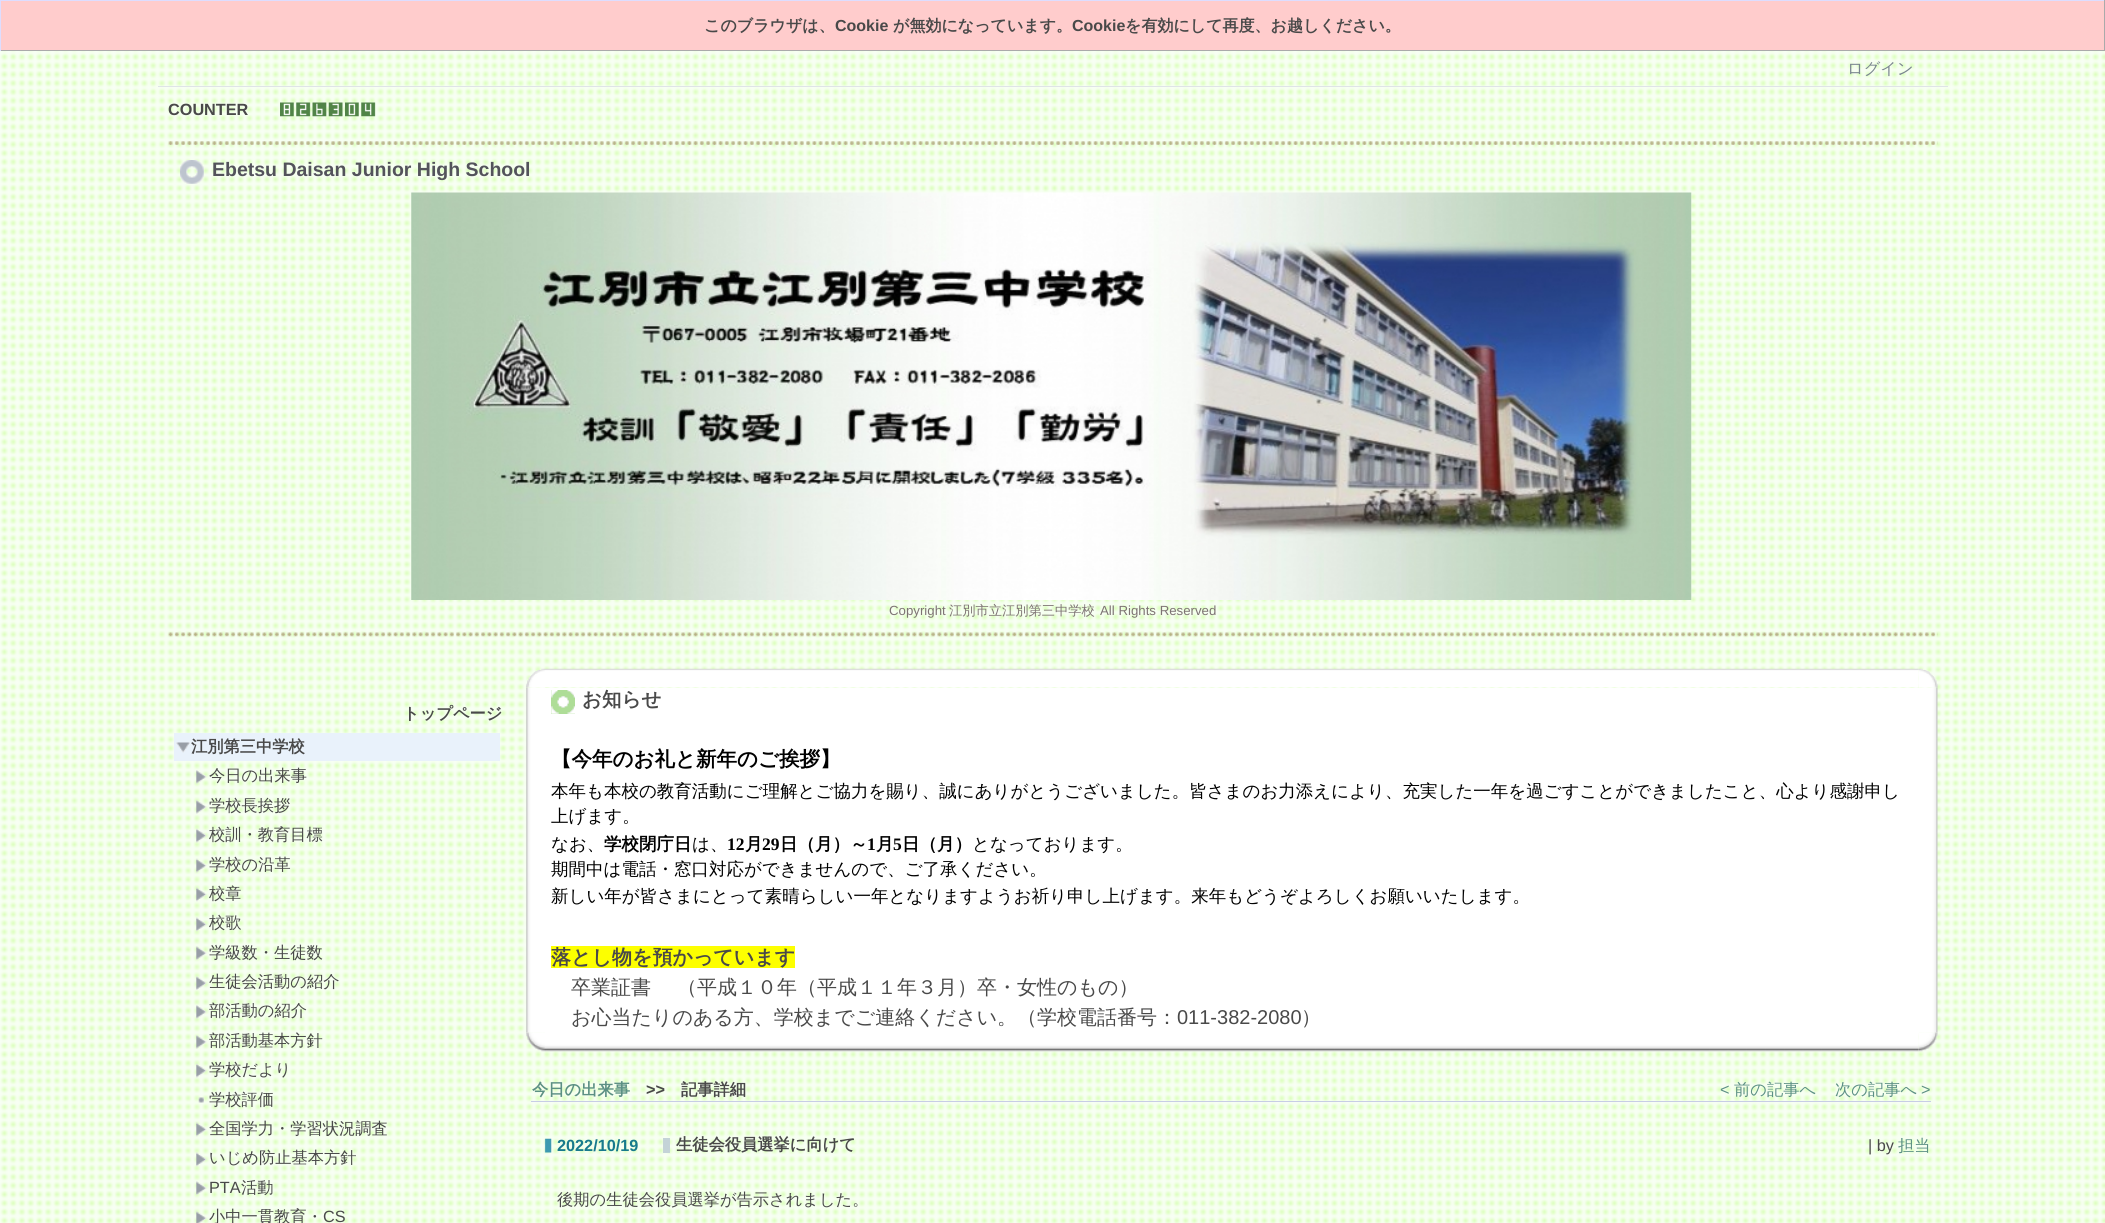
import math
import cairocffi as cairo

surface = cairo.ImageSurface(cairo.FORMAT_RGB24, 2105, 1223)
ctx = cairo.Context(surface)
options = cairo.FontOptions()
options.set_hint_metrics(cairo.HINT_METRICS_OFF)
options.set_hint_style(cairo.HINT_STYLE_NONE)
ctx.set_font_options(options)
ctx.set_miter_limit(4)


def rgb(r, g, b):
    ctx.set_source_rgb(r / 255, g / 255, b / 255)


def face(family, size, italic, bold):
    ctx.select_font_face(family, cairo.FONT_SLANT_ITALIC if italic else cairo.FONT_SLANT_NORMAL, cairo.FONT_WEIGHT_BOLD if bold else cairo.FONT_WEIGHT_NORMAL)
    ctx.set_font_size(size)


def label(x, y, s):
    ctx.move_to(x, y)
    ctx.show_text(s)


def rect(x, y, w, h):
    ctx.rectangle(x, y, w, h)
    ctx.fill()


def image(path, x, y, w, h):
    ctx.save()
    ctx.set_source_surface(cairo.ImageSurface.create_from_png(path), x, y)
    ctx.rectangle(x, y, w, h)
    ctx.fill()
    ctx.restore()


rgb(255, 255, 255)
ctx.paint()
image('image0.png', 0, 51, 2105, 1172)
rgb(255, 204, 204)
rect(1, 1, 2103, 49)
rgb(221, 221, 255)
rect(0, 0, 2105, 1)
rgb(170, 170, 170)
rect(2104, 0, 1, 51)
rect(0, 50, 2105, 1)
rgb(221, 221, 255)
rect(0, 0, 1, 51)
face('WenQuanYi Zen Hei', 16, 0, 1)
rgb(73, 73, 73)
label(704, 31, 'このブラウザは、')
face('Liberation Sans', 16, 0, 1)
label(835, 31, 'Cookie')
face('WenQuanYi Zen Hei', 16, 0, 1)
label(893, 31, 'が無効になっています。')
face('Liberation Sans', 16, 0, 1)
label(1072, 31, 'Cookie')
face('WenQuanYi Zen Hei', 16, 0, 1)
label(1125, 31, 'を有効にして再度、お越しください。')
rgb(223, 228, 231)
rect(158, 86, 1790, 1)
face('WenQuanYi Zen Hei Medium', 16.25, 0, 0)
rgb(122, 133, 143)
label(1847, 74, 'ログイン')
face('Liberation Sans', 16.25, 0, 1)
rgb(73, 73, 73)
label(168, 115, 'COUNTER')
image('image1.png', 280, 102, 14, 15)
image('image2.png', 296, 102, 15, 15)
image('image3.png', 312, 102, 15, 15)
image('image4.png', 328, 102, 15, 15)
image('image5.png', 345, 102, 14, 15)
image('image6.png', 361, 102, 15, 15)
image('image7.png', 168, 141, 1770, 4)
image('image8.png', 180, 160, 24, 24)
face('Liberation Sans', 19.5, 0, 1)
rgb(83, 83, 91)
label(212, 176, 'Ebetsu Daisan Junior High School')
image('image9.png', 411, 192, 1281, 408)
face('Liberation Sans', 13.25, 0, 0)
rgb(125, 115, 115)
label(889, 615, 'Copyright')
face('WenQuanYi Zen Hei Medium', 13.25, 0, 0)
label(949, 615, '江別市立江別第三中学校')
face('Liberation Sans', 13.25, 0, 0)
label(1100, 615, 'All Rights Reserved')
image('image10.png', 168, 632, 1770, 5)
face('WenQuanYi Zen Hei', 16.25, 0, 1)
rgb(73, 73, 73)
label(403, 719, 'トップページ')
rgb(233, 242, 251)
rect(174, 733, 326, 28)
image('image11.png', 176, 742, 14, 11)
rgb(73, 73, 73)
label(191, 752, '江別第三中学校')
image('image12.png', 196, 770, 11, 14)
face('WenQuanYi Zen Hei Medium', 16.25, 0, 0)
label(209, 781, '今日の出来事')
image('image13.png', 196, 800, 11, 14)
label(209, 811, '学校長挨拶')
image('image14.png', 196, 828, 11, 15)
label(209, 840, '校訓・教育目標')
image('image15.png', 196, 858, 11, 15)
label(209, 870, '学校の沿革')
image('image16.png', 196, 887, 11, 15)
label(209, 899, '校章')
image('image17.png', 196, 917, 11, 15)
label(209, 928, '校歌')
image('image18.png', 196, 946, 11, 14)
label(209, 958, '学級数・生徒数')
image('image19.png', 196, 976, 11, 14)
label(209, 987, '生徒会活動の紹介')
image('image20.png', 196, 1005, 11, 14)
label(209, 1016, '部活動の紹介')
image('image21.png', 196, 1035, 11, 14)
label(209, 1046, '部活動基本方針')
image('image22.png', 196, 1063, 11, 15)
label(209, 1075, '学校だより')
image('image23.png', 198, 1097, 6, 6)
label(209, 1105, '学校評価')
image('image24.png', 196, 1122, 11, 15)
label(209, 1134, '全国学力・学習状況調査')
image('image25.png', 196, 1152, 11, 15)
label(209, 1163, 'いじめ防止基本方針')
image('image26.png', 196, 1181, 11, 14)
face('Liberation Sans', 16.25, 0, 0)
label(209, 1193, 'PTA')
face('WenQuanYi Zen Hei Medium', 16.25, 0, 0)
label(241, 1193, '活動')
image('image27.png', 196, 1211, 11, 12)
label(209, 1222, '小中一貫教育・')
face('Liberation Sans', 16.25, 0, 0)
label(323, 1222, 'CS')
image('image28.png', 526, 668, 19, 20)
image('image29.png', 526, 669, 16, 18)
image('image30.png', 545, 668, 1374, 20)
image('image31.png', 1919, 668, 19, 20)
image('image32.png', 1922, 669, 16, 18)
image('image33.png', 526, 687, 19, 346)
rgb(255, 255, 255)
rect(545, 688, 1374, 345)
rgb(174, 221, 151)
rect(551, 690, 24, 24)
image('image34.png', 551, 690, 24, 24)
face('WenQuanYi Zen Hei', 19.5, 0, 1)
rgb(73, 73, 73)
label(582, 706, 'お知らせ')
face('WenQuanYi Zen Hei', 20.5, 0, 1)
rgb(0, 0, 0)
label(551, 766, '【今年のお礼と新年のご挨拶】')
face('WenQuanYi Zen Hei Medium', 17.5, 0, 0)
label(551, 797, '本年も本校の教育活動にご理解とご協力を賜り、誠にありがとうございました。皆さまのお力添えにより、充実した一年を過ごすことができましたこと、心より感謝申し')
label(551, 822, '上げます。')
label(551, 850, 'なお、')
face('WenQuanYi Zen Hei', 17.5, 0, 1)
label(604, 850, '学校閉庁日')
face('WenQuanYi Zen Hei Medium', 17.5, 0, 0)
label(692, 850, 'は、')
face('Liberation Serif', 17.5, 0, 1)
label(727, 850, '12')
face('WenQuanYi Zen Hei', 17.5, 0, 1)
label(745, 850, '月')
face('Liberation Serif', 17.5, 0, 1)
label(762, 850, '29')
face('WenQuanYi Zen Hei', 17.5, 0, 1)
label(780, 850, '日（月）～')
face('Liberation Serif', 17.5, 0, 1)
label(867, 850, '1')
face('WenQuanYi Zen Hei', 17.5, 0, 1)
label(876, 850, '月')
face('Liberation Serif', 17.5, 0, 1)
label(893, 850, '5')
face('WenQuanYi Zen Hei', 17.5, 0, 1)
label(902, 850, '日（月）')
face('WenQuanYi Zen Hei Medium', 17.5, 0, 0)
label(972, 850, 'となっております。')
label(551, 875, '期間中は電話・窓口対応ができませんので、ご了承ください。')
label(551, 902, '新しい年が皆さまにとって素晴らしい一年となりますようお祈り申し上げます。来年もどうぞよろしくお願いいたします。')
rgb(253, 255, 0)
rect(551, 946, 244, 22)
face('WenQuanYi Zen Hei', 20, 0, 1)
rgb(73, 73, 73)
label(551, 964, '落とし物を預かっています')
face('WenQuanYi Zen Hei Medium', 20, 0, 0)
label(571, 994, '卒業証書 　（平成１０年（平成１１年３月）卒・女性のもの）')
label(571, 1024, 'お心当たりのある方、学校までご連絡ください。（学校電話番号：')
face('Liberation Sans', 20, 0, 0)
label(1177, 1024, '011-382-2080')
face('WenQuanYi Zen Hei Medium', 20, 0, 0)
label(1301, 1024, '）')
image('image35.png', 1919, 687, 19, 346)
image('image36.png', 526, 1032, 19, 20)
image('image37.png', 545, 1033, 1374, 19)
image('image38.png', 1918, 1032, 20, 20)
face('WenQuanYi Zen Hei', 16.25, 0, 1)
rgb(92, 144, 132)
label(532, 1095, '今日の出来事')
face('Liberation Sans', 16.25, 0, 1)
rgb(73, 73, 73)
label(646, 1095, '>>')
face('WenQuanYi Zen Hei', 16.25, 0, 1)
label(681, 1095, '記事詳細')
face('Liberation Sans', 16.25, 0, 0)
rgb(92, 144, 132)
label(1720, 1095, '<')
face('WenQuanYi Zen Hei Medium', 16.25, 0, 0)
label(1734, 1095, '前の記事へ')
label(1835, 1095, '次の記事へ')
face('Liberation Sans', 16.25, 0, 0)
label(1921, 1095, '>')
image('image39.png', 544, 1138, 8, 15)
face('Liberation Sans', 16.25, 0, 1)
rgb(24, 122, 140)
label(557, 1151, '2022/10/19')
rgb(196, 211, 215)
rect(663, 1138, 7, 15)
face('WenQuanYi Zen Hei', 16.25, 0, 1)
rgb(73, 73, 73)
label(676, 1150, '生徒会役員選挙に向けて')
rgb(199, 205, 230)
rect(531, 1101, 1400, 1)
face('Liberation Sans', 16.25, 0, 0)
rgb(73, 73, 73)
label(1868, 1151, '| by')
face('WenQuanYi Zen Hei Medium', 16.25, 0, 0)
rgb(92, 144, 132)
label(1898, 1151, '担当')
rgb(73, 73, 73)
label(557, 1205, '後期の生徒会役員選挙が告示されました。')
surface.write_to_png('render.png')
